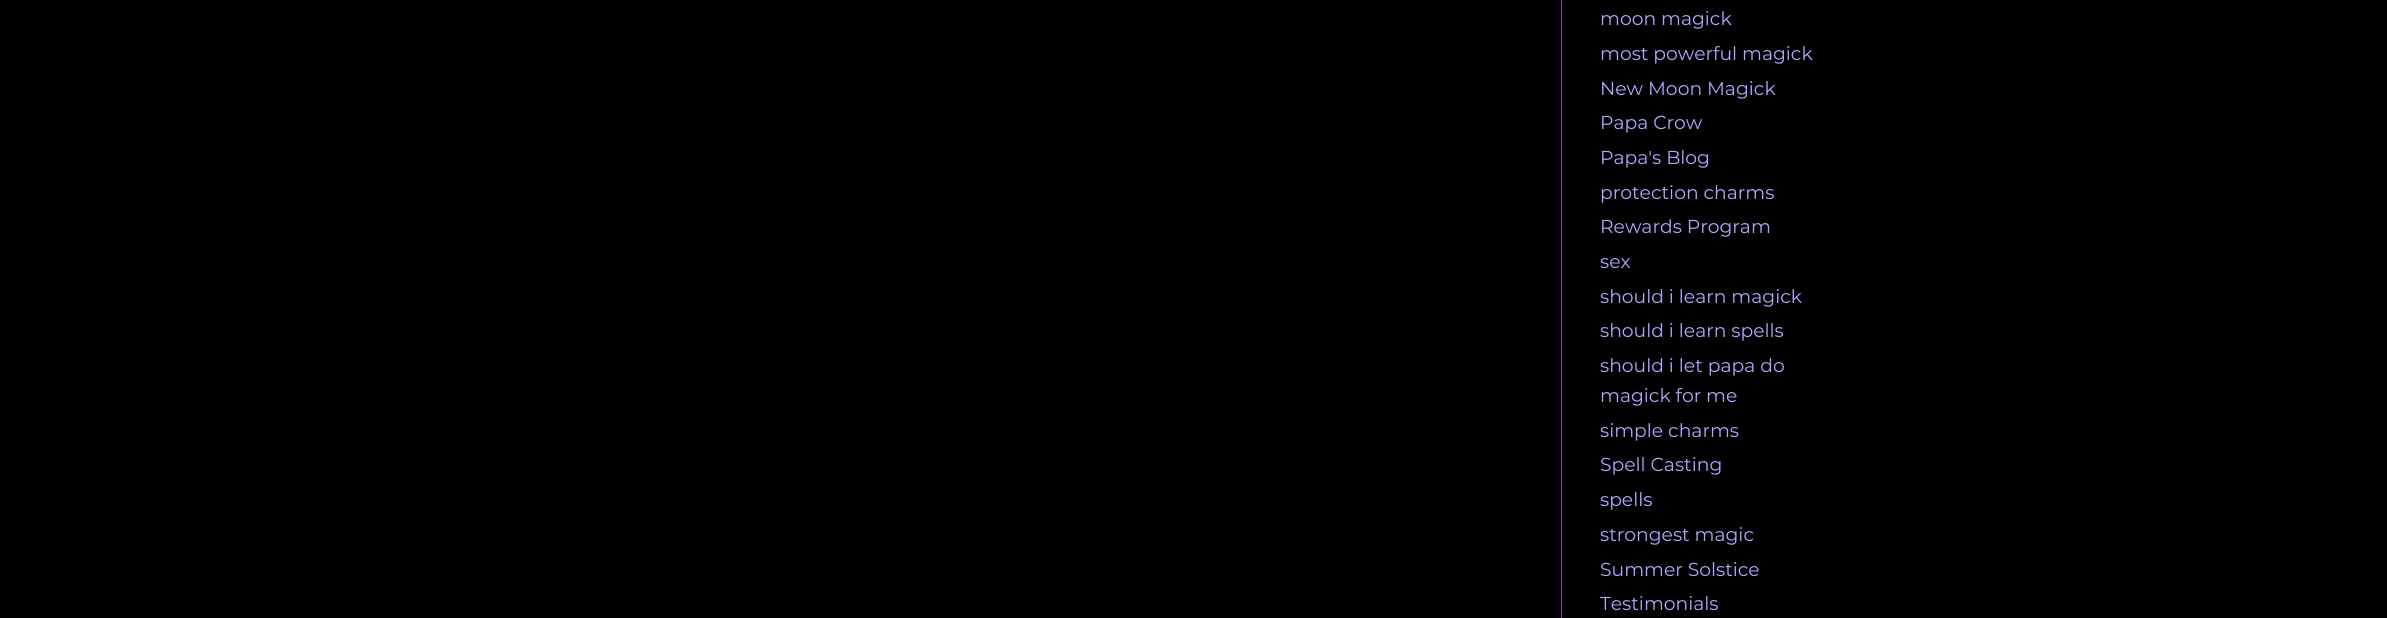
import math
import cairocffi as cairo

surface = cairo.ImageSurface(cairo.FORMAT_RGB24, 2387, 618)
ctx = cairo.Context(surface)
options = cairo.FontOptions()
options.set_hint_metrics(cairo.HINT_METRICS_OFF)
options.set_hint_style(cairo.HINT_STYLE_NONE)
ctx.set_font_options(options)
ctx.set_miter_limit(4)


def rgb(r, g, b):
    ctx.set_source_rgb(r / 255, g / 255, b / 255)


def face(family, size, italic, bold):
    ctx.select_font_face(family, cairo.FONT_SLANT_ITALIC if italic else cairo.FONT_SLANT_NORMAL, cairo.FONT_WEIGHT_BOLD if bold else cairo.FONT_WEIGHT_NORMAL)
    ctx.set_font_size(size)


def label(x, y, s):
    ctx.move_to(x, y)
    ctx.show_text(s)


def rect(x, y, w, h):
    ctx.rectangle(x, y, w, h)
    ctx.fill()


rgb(0, 0, 0)
ctx.paint()
rgb(136, 39, 202)
rect(1561, 0, 1, 618)
face('Montserrat Thin', 18.75, 0, 0)
rgb(170, 170, 255)
label(1600, 25, 'moon magick')
label(1600, 60, 'most powerful magick')
label(1600, 95, 'New Moon Magick')
label(1600, 129, 'Papa Crow')
label(1600, 164, 'Papa\'s Blog')
label(1600, 199, 'protection charms')
label(1600, 233, 'Rewards Program')
label(1600, 268, 'sex')
label(1600, 303, 'should i learn magick')
label(1600, 337, 'should i learn spells')
label(1600, 372, 'should i let papa do')
label(1600, 402, 'magick for me')
label(1600, 437, 'simple charms')
label(1600, 471, 'Spell Casting')
label(1600, 506, 'spells')
label(1600, 541, 'strongest magic')
label(1600, 576, 'Summer Solstice')
label(1600, 610, 'Testimonials')
surface.write_to_png('render.png')
